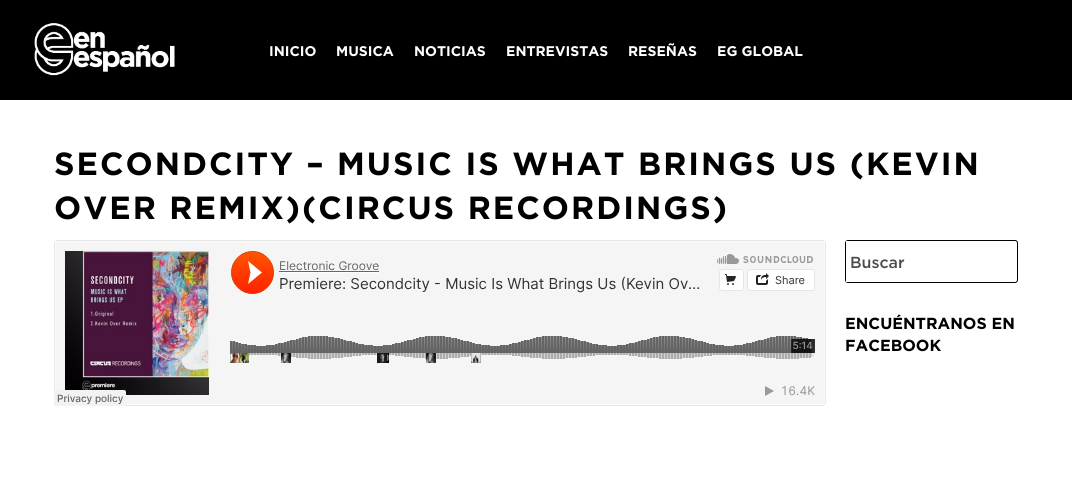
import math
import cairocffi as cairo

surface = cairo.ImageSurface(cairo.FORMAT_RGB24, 1072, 481)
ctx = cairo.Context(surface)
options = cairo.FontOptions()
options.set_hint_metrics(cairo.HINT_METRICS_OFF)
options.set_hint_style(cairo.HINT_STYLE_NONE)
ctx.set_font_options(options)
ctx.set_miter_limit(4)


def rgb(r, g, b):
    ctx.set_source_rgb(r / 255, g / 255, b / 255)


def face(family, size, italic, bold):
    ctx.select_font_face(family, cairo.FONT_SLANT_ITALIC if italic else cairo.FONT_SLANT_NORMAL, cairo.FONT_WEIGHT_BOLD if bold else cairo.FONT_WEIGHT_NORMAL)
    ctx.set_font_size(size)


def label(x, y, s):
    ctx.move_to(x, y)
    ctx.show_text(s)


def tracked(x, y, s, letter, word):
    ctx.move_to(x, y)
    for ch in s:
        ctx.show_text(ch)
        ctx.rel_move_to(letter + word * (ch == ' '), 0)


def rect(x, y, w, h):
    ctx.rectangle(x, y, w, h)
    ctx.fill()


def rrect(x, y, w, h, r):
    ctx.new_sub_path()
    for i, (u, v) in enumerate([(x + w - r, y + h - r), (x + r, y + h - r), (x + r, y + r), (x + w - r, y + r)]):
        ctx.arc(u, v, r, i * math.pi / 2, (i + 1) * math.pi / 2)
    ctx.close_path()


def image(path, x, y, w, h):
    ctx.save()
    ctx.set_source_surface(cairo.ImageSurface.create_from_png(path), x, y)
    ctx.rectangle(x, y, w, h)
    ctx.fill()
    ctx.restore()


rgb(255, 255, 255)
ctx.paint()
rgb(0, 0, 0)
rect(0, 0, 1072, 100)
image('image0.png', 34, 23, 141, 53)
face('Gotham', 14, 0, 1)
rgb(255, 255, 255)
label(269, 56, 'INICIO')
label(336, 56, 'MUSICA')
label(414, 56, 'NOTICIAS')
label(506, 56, 'ENTREVISTAS')
label(628, 56, 'RESEÑAS')
label(717, 56, 'EG GLOBAL')
face('Gotham', 32, 0, 1)
rgb(0, 0, 0)
tracked(54, 175, 'SECONDCITY – MUSIC IS WHAT BRINGS US (KEVIN', 2, 0)
tracked(54, 219, 'OVER REMIX)(CIRCUS RECORDINGS)', 2, 0)
image('image1.png', 54, 240, 772, 166)
rrect(845.5, 240.5, 172, 42, 2.5)
ctx.set_line_width(1)
ctx.stroke()
rgb(255, 255, 255)
rect(846, 241, 2, 41)
face('Gotham Medium', 16, 0, 0)
rgb(77, 77, 77)
label(850, 268, 'Buscar')
face('Gotham', 16, 0, 1)
rgb(0, 0, 0)
label(845, 329, 'ENCUÉNTRANOS EN')
label(845, 351, 'FACEBOOK')
surface.write_to_png('render.png')
